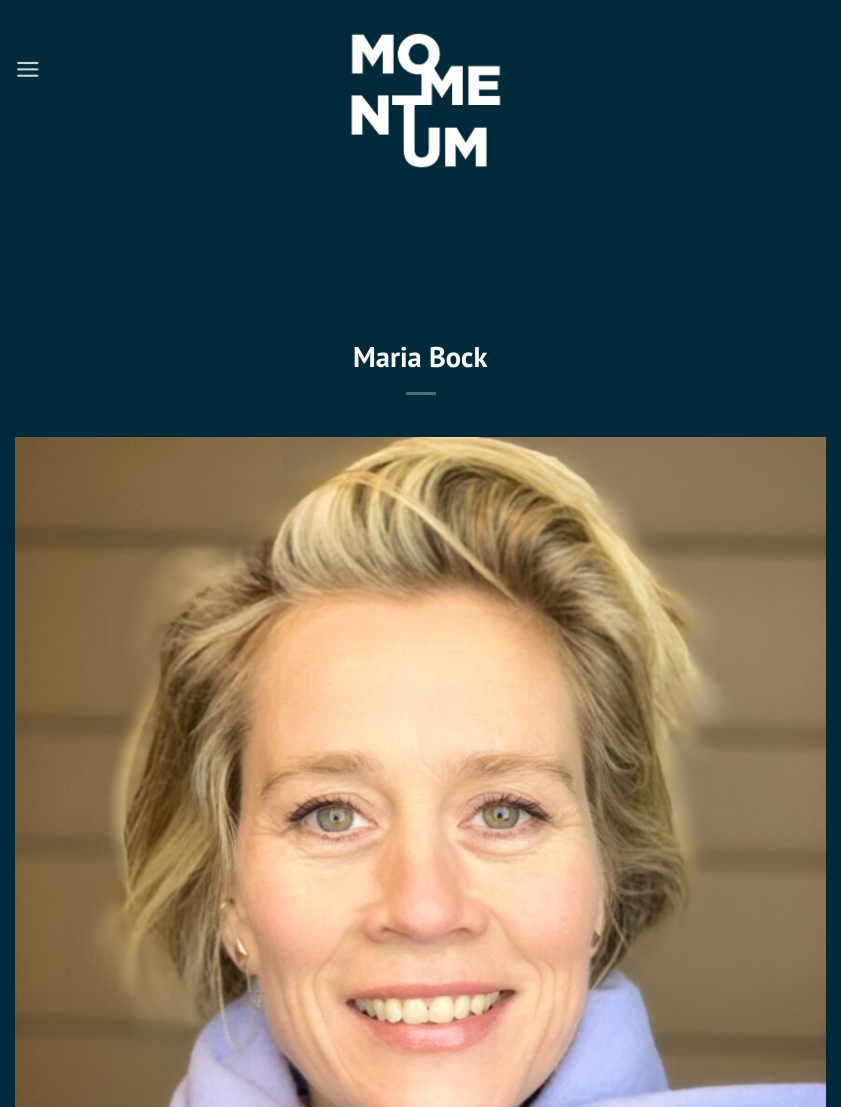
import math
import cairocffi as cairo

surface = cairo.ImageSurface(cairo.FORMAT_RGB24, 841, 1107)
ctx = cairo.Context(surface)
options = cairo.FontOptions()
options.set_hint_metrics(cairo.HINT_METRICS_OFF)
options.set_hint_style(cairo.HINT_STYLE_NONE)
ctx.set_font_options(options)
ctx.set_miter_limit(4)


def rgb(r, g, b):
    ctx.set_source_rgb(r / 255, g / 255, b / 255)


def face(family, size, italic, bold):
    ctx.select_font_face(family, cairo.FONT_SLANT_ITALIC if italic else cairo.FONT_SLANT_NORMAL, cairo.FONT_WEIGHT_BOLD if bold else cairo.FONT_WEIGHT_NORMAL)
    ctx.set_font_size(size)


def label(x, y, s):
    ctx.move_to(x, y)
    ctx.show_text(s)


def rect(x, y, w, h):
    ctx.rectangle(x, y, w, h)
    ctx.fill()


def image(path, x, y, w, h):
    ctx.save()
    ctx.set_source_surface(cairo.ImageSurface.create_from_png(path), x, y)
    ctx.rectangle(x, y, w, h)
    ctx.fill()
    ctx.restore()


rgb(0, 42, 58)
ctx.paint()
image('image0.png', 17, 61, 22, 16)
image('image1.png', 351, 33, 150, 135)
face('PT Sans', 28.5, 0, 1)
rgb(255, 255, 255)
label(353, 367, 'Maria Bock')
rgb(77, 106, 117)
rect(406, 392, 30, 3)
image('image2.png', 15, 437, 811, 670)
surface.write_to_png('render.png')
